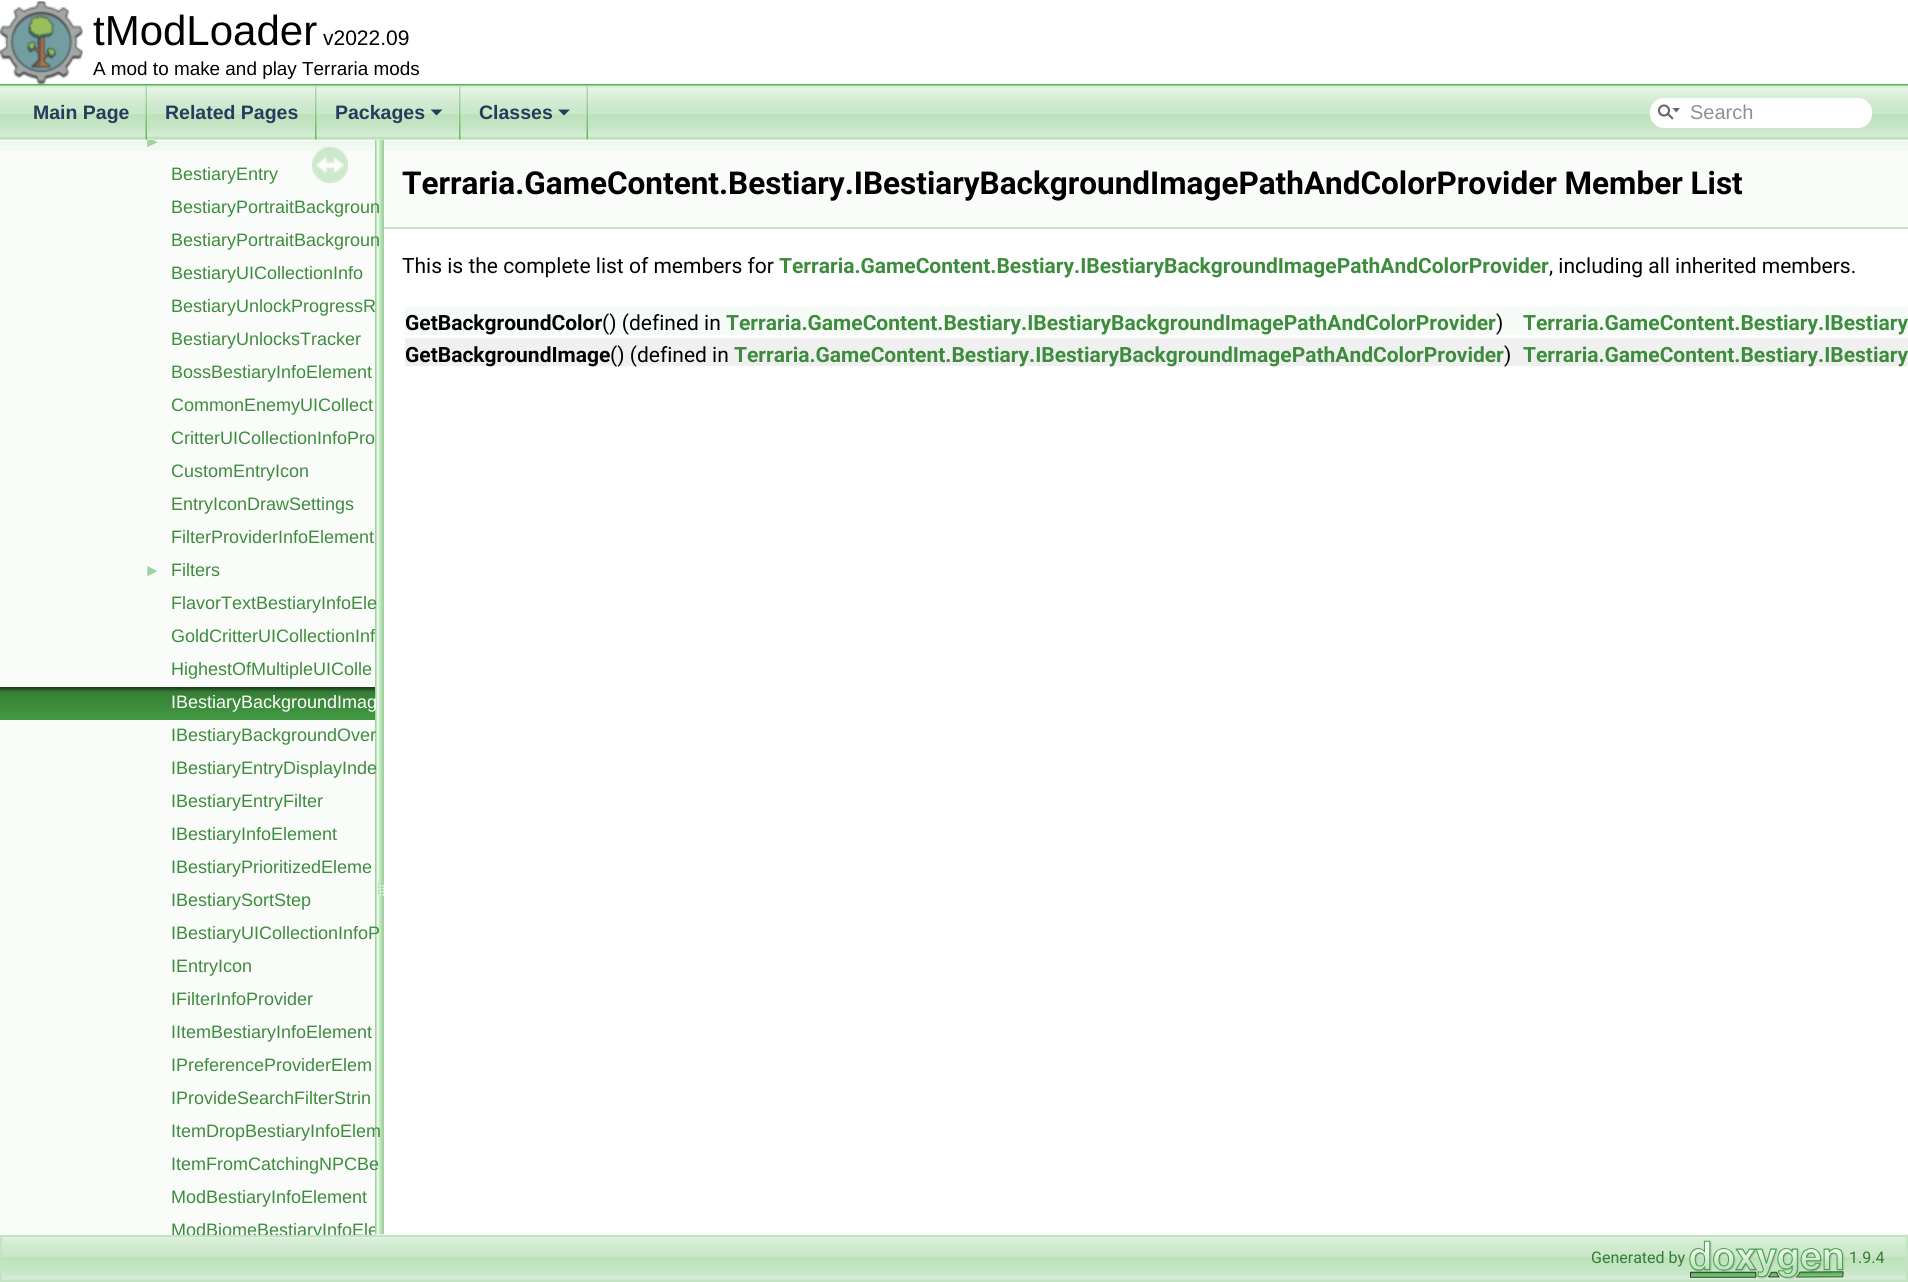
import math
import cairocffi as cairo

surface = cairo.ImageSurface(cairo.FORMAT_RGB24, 1908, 1282)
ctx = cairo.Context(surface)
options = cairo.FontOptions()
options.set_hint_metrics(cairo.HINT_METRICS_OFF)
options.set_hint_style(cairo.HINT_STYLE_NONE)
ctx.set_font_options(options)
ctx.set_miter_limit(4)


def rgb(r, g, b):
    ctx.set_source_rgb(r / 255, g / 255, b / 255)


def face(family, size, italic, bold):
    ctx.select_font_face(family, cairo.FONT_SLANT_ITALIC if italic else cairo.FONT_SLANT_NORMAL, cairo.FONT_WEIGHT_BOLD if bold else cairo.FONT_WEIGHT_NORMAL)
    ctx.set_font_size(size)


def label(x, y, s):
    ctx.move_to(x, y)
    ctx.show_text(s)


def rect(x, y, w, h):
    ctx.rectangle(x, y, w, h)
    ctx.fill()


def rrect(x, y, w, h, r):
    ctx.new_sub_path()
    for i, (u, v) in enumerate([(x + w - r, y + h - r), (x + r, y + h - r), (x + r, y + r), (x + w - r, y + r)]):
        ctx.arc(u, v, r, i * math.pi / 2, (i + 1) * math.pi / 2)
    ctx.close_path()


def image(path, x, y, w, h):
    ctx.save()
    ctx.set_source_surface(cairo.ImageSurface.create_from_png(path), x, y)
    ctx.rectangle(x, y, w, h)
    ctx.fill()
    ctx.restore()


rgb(255, 255, 255)
ctx.paint()
rgb(83, 180, 83)
rect(0, 84, 1908, 2)
image('image0.png', 0, 1, 83, 83)
face('Liberation Sans', 42, 0, 0)
rgb(0, 0, 0)
label(93, 45, 'tModLoader')
face('Liberation Sans', 21, 0, 0)
label(323, 45, 'v2022.09')
face('Liberation Sans', 18.9, 0, 0)
label(93, 75, 'A mod to make and play Terraria mods')
image('image12.png', 2, 1234, 1906, 47)
image('image10.png', 375, 139, 9, 1096)
image('image1.png', 0, 85, 1908, 55)
image('image2.png', 145, 85, 2, 55)
face('Liberation Sans', 19.5, 0, 1)
rgb(40, 58, 93)
label(33, 119, 'Main Page')
image('image3.png', 315, 85, 2, 55)
label(165, 119, 'Related Pages')
image('image4.png', 459, 85, 2, 55)
label(335, 119, 'Packages')
ctx.new_path()
ctx.move_to(430.5, 109.5)
ctx.line_to(442.5, 109.5)
ctx.line_to(436.5, 115.5)
ctx.close_path()
ctx.fill()
image('image5.png', 586, 85, 2, 55)
label(479, 119, 'Classes')
ctx.new_path()
ctx.move_to(558, 109.5)
ctx.line_to(570, 109.5)
ctx.line_to(564, 115.5)
ctx.close_path()
ctx.fill()
rgb(255, 255, 255)
rrect(1650, 98, 222, 30, 14)
ctx.fill()
image('image6.png', 1657, 104, 23, 16)
face('Liberation Sans', 20, 0, 0)
rgb(144, 144, 144)
label(1690, 119, 'Search')
rgb(249, 252, 249)
rect(0, 140, 375, 1095)
image('image7.png', 0, 141, 375, 10)
ctx.save()
ctx.rectangle(0, 140, 375, 1095)
ctx.clip()
face('Liberation Sans', 17, 0, 0)
rgb(156, 212, 156)
label(144, 147, '►')
ctx.restore()
face('Liberation Sans', 18, 0, 0)
rgb(61, 140, 61)
label(171, 180, 'BestiaryEntry')
label(171, 213, 'BestiaryPortraitBackgroun')
label(171, 246, 'BestiaryPortraitBackgroun')
label(171, 279, 'BestiaryUICollectionInfo')
label(171, 312, 'BestiaryUnlockProgressR')
label(171, 345, 'BestiaryUnlocksTracker')
label(171, 378, 'BossBestiaryInfoElement')
label(171, 411, 'CommonEnemyUICollect')
label(171, 444, 'CritterUICollectionInfoPro')
label(171, 477, 'CustomEntryIcon')
label(171, 510, 'EntryIconDrawSettings')
label(171, 543, 'FilterProviderInfoElement')
face('Liberation Sans', 17, 0, 0)
rgb(156, 212, 156)
label(144, 576, '►')
face('Liberation Sans', 18, 0, 0)
rgb(61, 140, 61)
label(171, 576, 'Filters')
label(171, 609, 'FlavorTextBestiaryInfoEle')
label(171, 642, 'GoldCritterUICollectionInf')
label(171, 675, 'HighestOfMultipleUIColle')
image('image8.png', 0, 687, 375, 33)
rgb(255, 255, 255)
label(171, 708, 'IBestiaryBackgroundImag')
rgb(61, 140, 61)
label(171, 741, 'IBestiaryBackgroundOver')
label(171, 774, 'IBestiaryEntryDisplayInde')
label(171, 807, 'IBestiaryEntryFilter')
label(171, 840, 'IBestiaryInfoElement')
label(171, 873, 'IBestiaryPrioritizedEleme')
label(171, 906, 'IBestiarySortStep')
label(171, 939, 'IBestiaryUICollectionInfoP')
label(171, 972, 'IEntryIcon')
label(171, 1005, 'IFilterInfoProvider')
label(171, 1038, 'IItemBestiaryInfoElement')
label(171, 1071, 'IPreferenceProviderElem')
label(171, 1104, 'IProvideSearchFilterStrin')
label(171, 1137, 'ItemDropBestiaryInfoElem')
label(171, 1170, 'ItemFromCatchingNPCBe')
label(171, 1203, 'ModBestiaryInfoElement')
ctx.save()
ctx.rectangle(0, 140, 375, 1095)
ctx.clip()
label(171, 1236, 'ModBiomeBestiaryInfoEle')
ctx.restore()
image('image9.png', 312, 147, 36, 36)
rgb(249, 252, 249)
rect(384, 140, 1524, 87)
image('image11.png', 384, 141, 1524, 10)
rgb(196, 229, 196)
rect(384, 227, 1524, 2)
face('Roboto', 31.5, 0, 1)
rgb(0, 0, 0)
label(402, 194, 'Terraria.GameContent.Bestiary.IBestiaryBackgroundImagePathAndColorProvider Member List')
face('Roboto', 21, 0, 0)
label(402, 273, 'This is the complete list of members for')
face('Roboto', 21, 0, 1)
rgb(61, 140, 61)
label(779, 273, 'Terraria.GameContent.Bestiary.IBestiaryBackgroundImagePathAndColorProvider')
face('Roboto', 21, 0, 0)
rgb(0, 0, 0)
label(1549, 273, ', including all inherited members.')
rgb(247, 251, 247)
rect(405, 306, 1503, 29)
face('Roboto', 21, 0, 1)
rgb(0, 0, 0)
label(405, 330, 'GetBackgroundColor')
face('Roboto', 21, 0, 0)
label(602, 330, '() (defined in')
face('Roboto', 21, 0, 1)
rgb(61, 140, 61)
label(726, 330, 'Terraria.GameContent.Bestiary.IBestiaryBackgroundImagePathAndColorProvider')
face('Roboto', 21, 0, 0)
rgb(0, 0, 0)
label(1496, 330, ')')
face('Roboto', 21, 0, 1)
rgb(61, 140, 61)
label(1523, 330, 'Terraria.GameContent.Bestiary.IBestiary')
rgb(240, 240, 240)
rect(405, 338, 1503, 28)
rgb(0, 0, 0)
label(405, 362, 'GetBackgroundImage')
face('Roboto', 21, 0, 0)
label(610, 362, '() (defined in')
face('Roboto', 21, 0, 1)
rgb(61, 140, 61)
label(734, 362, 'Terraria.GameContent.Bestiary.IBestiaryBackgroundImagePathAndColorProvider')
face('Roboto', 21, 0, 0)
rgb(0, 0, 0)
label(1504, 362, ')')
face('Roboto', 21, 0, 1)
rgb(61, 140, 61)
label(1523, 362, 'Terraria.GameContent.Bestiary.IBestiary')
ctx.rectangle(1, 1236, 1906, 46)
rgb(194, 228, 194)
ctx.stroke()
face('Roboto', 16, 0, 0)
rgb(54, 124, 54)
label(1591, 1263, 'Generated by')
image('image13.png', 1689, 1240, 156, 40)
label(1849, 1263, '1.9.4')
surface.write_to_png('render.png')
